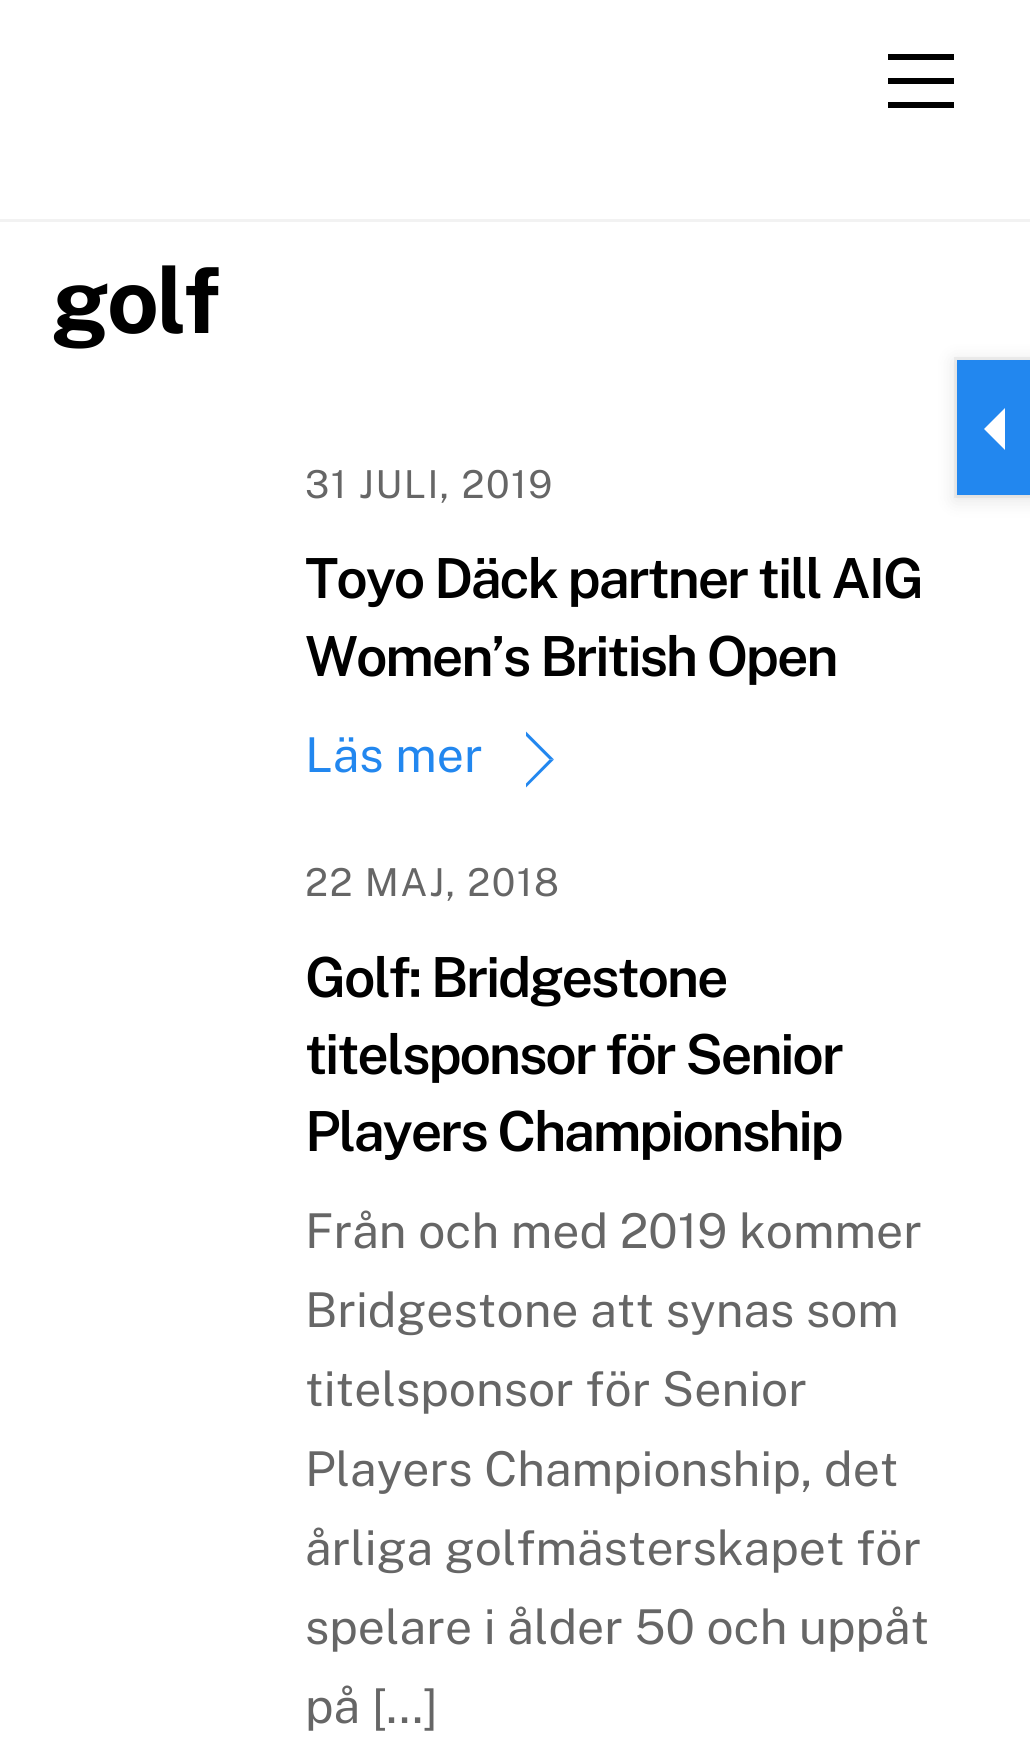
import math
import cairocffi as cairo

surface = cairo.ImageSurface(cairo.FORMAT_RGB24, 1030, 1752)
ctx = cairo.Context(surface)
options = cairo.FontOptions()
options.set_hint_metrics(cairo.HINT_METRICS_OFF)
options.set_hint_style(cairo.HINT_STYLE_NONE)
ctx.set_font_options(options)
ctx.set_miter_limit(4)


def rgb(r, g, b):
    ctx.set_source_rgb(r / 255, g / 255, b / 255)


def face(family, size, italic, bold):
    ctx.select_font_face(family, cairo.FONT_SLANT_ITALIC if italic else cairo.FONT_SLANT_NORMAL, cairo.FONT_WEIGHT_BOLD if bold else cairo.FONT_WEIGHT_NORMAL)
    ctx.set_font_size(size)


def label(x, y, s):
    ctx.move_to(x, y)
    ctx.show_text(s)


def tracked(x, y, s, letter, word):
    ctx.move_to(x, y)
    for ch in s:
        ctx.show_text(ch)
        ctx.rel_move_to(letter + word * (ch == ' '), 0)


def rect(x, y, w, h):
    ctx.rectangle(x, y, w, h)
    ctx.fill()


def rrect(x, y, w, h, r):
    ctx.new_sub_path()
    for i, (u, v) in enumerate([(x + w - r, y + h - r), (x + r, y + h - r), (x + r, y + r), (x + w - r, y + r)]):
        ctx.arc(u, v, r, i * math.pi / 2, (i + 1) * math.pi / 2)
    ctx.close_path()


def soft_shadow(x, y, w, h, r, blur, alpha):
    ctx.push_group_with_content(cairo.CONTENT_ALPHA)
    ctx.set_operator(cairo.OPERATOR_SOURCE)
    for i in range(15, -16, -2):
        e = blur * i / 6
        if min(w, h) + 2 * e > 0:
            ctx.set_source_rgba(0, 0, 0, alpha * math.erfc((i - 1) / 8.5) / 2)
            rrect(x - e, y - e, w + 2 * e, h + 2 * e, max(0, min(r + e + blur * .6, min(w, h) / 2 + e)))
            ctx.fill()
    ctx.mask(ctx.pop_group())


rgb(255, 255, 255)
ctx.paint()
rgb(242, 242, 242)
rect(0, 219, 1030, 3)
rgb(0, 0, 0)
rect(888, 102, 66, 6)
rect(888, 54, 66, 6)
rect(888, 78, 66, 6)
rgb(0, 0, 0)
soft_shadow(954, 360, 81, 141, 0, 9, 0.1)
ctx.rectangle(955.5, 358.5, 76, 138)
ctx.set_source_rgba(0, 0, 0, 0.05)
ctx.set_line_width(3)
ctx.stroke()
rgb(34, 135, 239)
rect(957, 360, 73, 135)
rgb(255, 255, 255)
ctx.new_path()
ctx.move_to(1005, 408)
ctx.line_to(1005, 450)
ctx.line_to(984, 429)
ctx.close_path()
ctx.fill()
face('Public Sans', 91, 0, 1)
rgb(0, 0, 0)
tracked(52, 333, 'golf', -2.5, 0)
face('Public Sans', 38.5, 0, 0)
rgb(102, 102, 102)
tracked(305, 498, '31 JULI, 2019', 1.5, 0)
face('Public Sans SemiBold', 55.25, 0, 0)
rgb(0, 0, 0)
tracked(305, 598, 'Toyo Däck partner till AIG', -2.2, 0)
tracked(305, 676, 'Women’s British Open', -2.2, 0)
face('Public Sans', 48, 0, 0)
rgb(34, 135, 239)
label(305, 772, 'Läs mer')
ctx.new_path()
ctx.move_to(526, 731.5)
ctx.line_to(554, 759.5)
ctx.line_to(549.5, 759.5)
ctx.line_to(526, 736)
ctx.close_path()
ctx.fill()
ctx.new_path()
ctx.move_to(554, 759.5)
ctx.line_to(526, 787.5)
ctx.line_to(526, 783.5)
ctx.line_to(549.5, 759.5)
ctx.close_path()
ctx.fill()
face('Public Sans', 38.5, 0, 0)
rgb(102, 102, 102)
tracked(305, 896, '22 MAJ, 2018', 1.5, 0)
face('Public Sans SemiBold', 55.25, 0, 0)
rgb(0, 0, 0)
tracked(305, 997, 'Golf: Bridgestone', -2.2, 0)
tracked(305, 1074, 'titelsponsor för Senior', -2.2, 0)
tracked(305, 1151, 'Players Championship', -2.2, 0)
face('Public Sans', 48, 0, 0)
rgb(102, 102, 102)
label(305, 1248, 'Från och med 2019 kommer')
label(305, 1327, 'Bridgestone att synas som')
label(305, 1406, 'titelsponsor för Senior')
label(305, 1486, 'Players Championship, det')
label(305, 1565, 'årliga golfmästerskapet för')
label(305, 1644, 'spelare i ålder 50 och uppåt')
label(305, 1723, 'på […]')
surface.write_to_png('render.png')
